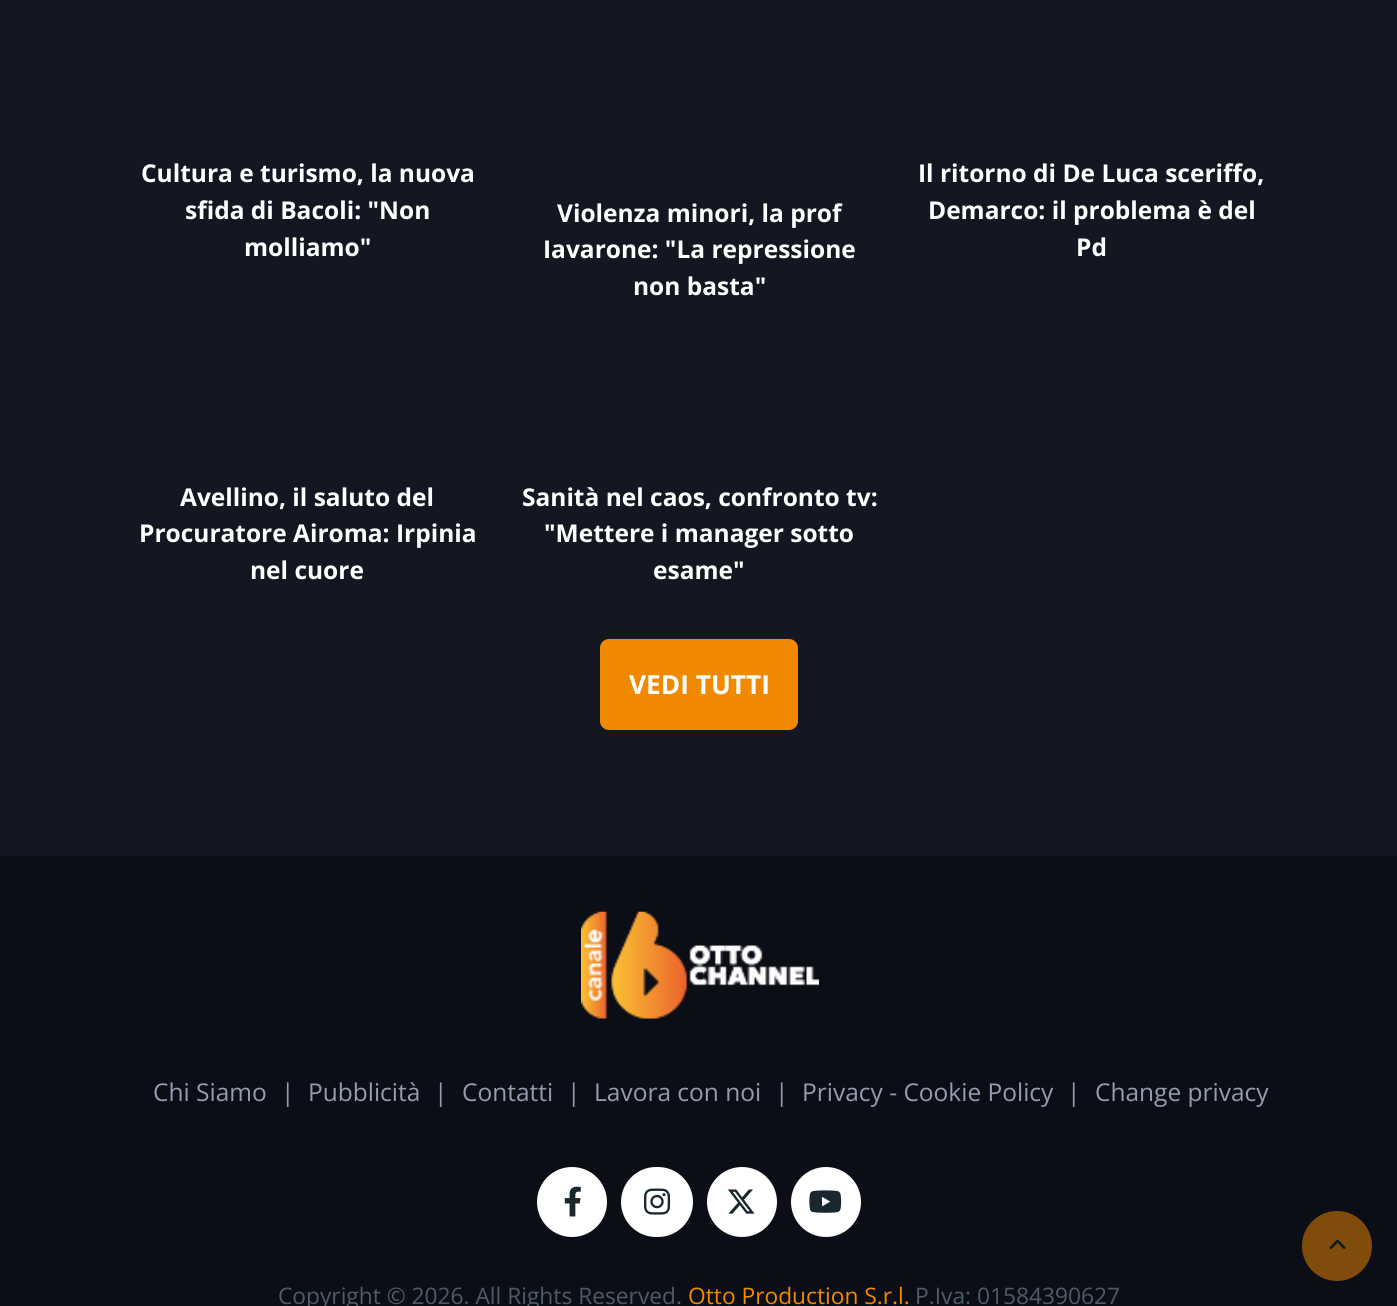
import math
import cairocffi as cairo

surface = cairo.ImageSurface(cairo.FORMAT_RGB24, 1397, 1306)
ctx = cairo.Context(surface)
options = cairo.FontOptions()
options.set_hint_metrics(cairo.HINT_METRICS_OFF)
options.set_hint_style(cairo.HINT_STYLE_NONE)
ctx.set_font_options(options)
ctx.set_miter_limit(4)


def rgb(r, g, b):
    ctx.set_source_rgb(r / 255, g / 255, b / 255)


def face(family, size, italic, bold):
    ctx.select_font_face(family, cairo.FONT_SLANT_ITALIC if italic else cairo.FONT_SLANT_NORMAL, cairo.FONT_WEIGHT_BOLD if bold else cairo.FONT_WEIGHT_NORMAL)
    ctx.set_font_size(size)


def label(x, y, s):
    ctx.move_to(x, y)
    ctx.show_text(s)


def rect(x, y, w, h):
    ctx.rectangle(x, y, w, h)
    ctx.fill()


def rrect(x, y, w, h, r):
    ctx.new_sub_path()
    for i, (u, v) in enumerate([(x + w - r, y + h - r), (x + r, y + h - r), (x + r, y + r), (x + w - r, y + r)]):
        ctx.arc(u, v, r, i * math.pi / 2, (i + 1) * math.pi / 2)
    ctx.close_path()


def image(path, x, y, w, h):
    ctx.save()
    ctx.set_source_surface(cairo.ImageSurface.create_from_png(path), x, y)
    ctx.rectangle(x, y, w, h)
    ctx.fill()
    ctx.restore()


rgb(12, 14, 23)
ctx.paint()
rgb(19, 23, 34)
rect(0, 0, 1397, 856)
face('Open Sans', 24.5, 0, 1)
rgb(255, 255, 255)
label(141, 182, 'Cultura e turismo, la nuova')
label(185, 219, 'sfida di Bacoli: "Non')
label(244, 256, 'molliamo"')
label(557, 222, 'Violenza minori, la prof')
label(543, 258, 'Iavarone: "La repressione')
label(633, 295, 'non basta"')
label(918, 182, 'Il ritorno di De Luca sceriffo,')
label(928, 219, 'Demarco: il problema è del')
label(1076, 256, 'Pd')
label(180, 506, 'Avellino, il saluto del')
label(139, 542, 'Procuratore Airoma: Irpinia')
label(250, 579, 'nel cuore')
label(522, 506, 'Sanità nel caos, confronto tv:')
label(544, 542, '"Mettere i manager sotto')
label(653, 579, 'esame"')
rgb(241, 137, 0)
rrect(601, 640, 196, 89, 8)
ctx.fill_preserve()
ctx.stroke()
face('Open Sans', 26.25, 0, 1)
rgb(255, 255, 255)
label(629, 694, 'VEDI TUTTI')
image('image0.png', 581, 911, 238, 108)
face('Open Sans', 24.5, 0, 0)
rgb(148, 156, 176)
label(153, 1101, 'Chi Siamo')
label(281, 1101, '|')
label(308, 1101, 'Pubblicità')
label(434, 1101, '|')
label(462, 1101, 'Contatti')
label(567, 1101, '|')
label(594, 1101, 'Lavora con noi')
label(775, 1101, '|')
label(802, 1101, 'Privacy - Cookie Policy')
label(1067, 1101, '|')
label(1095, 1101, 'Change privacy')
rgb(255, 255, 255)
ctx.new_path()
ctx.arc(572, 1202, 34, 0, 2 * math.pi)
ctx.fill_preserve()
ctx.stroke()
image('image1.png', 564, 1186, 17, 31)
rrect(622, 1168, 70, 68, 34)
ctx.fill_preserve()
ctx.stroke()
image('image2.png', 644, 1188, 27, 27)
ctx.arc(742, 1202, 34, 0, 2 * math.pi)
ctx.fill_preserve()
ctx.stroke()
image('image3.png', 727, 1189, 28, 25)
ctx.arc(826, 1202, 34, 0, 2 * math.pi)
ctx.fill_preserve()
ctx.stroke()
image('image4.png', 809, 1190, 33, 23)
face('Open Sans', 22.75, 0, 0)
rgb(77, 92, 99)
label(278, 1304, 'Copyright © 2026. All Rights Reserved.')
rgb(241, 137, 0)
label(688, 1304, 'Otto Production S.r.l.')
rgb(77, 92, 99)
label(915, 1304, 'P.Iva: 01584390627')
rgb(127, 76, 12)
ctx.new_path()
ctx.arc(1337, 1246, 35, 0, 2 * math.pi)
ctx.fill()
image('image5.png', 1329, 1239, 17, 10)
surface.write_to_png('render.png')
